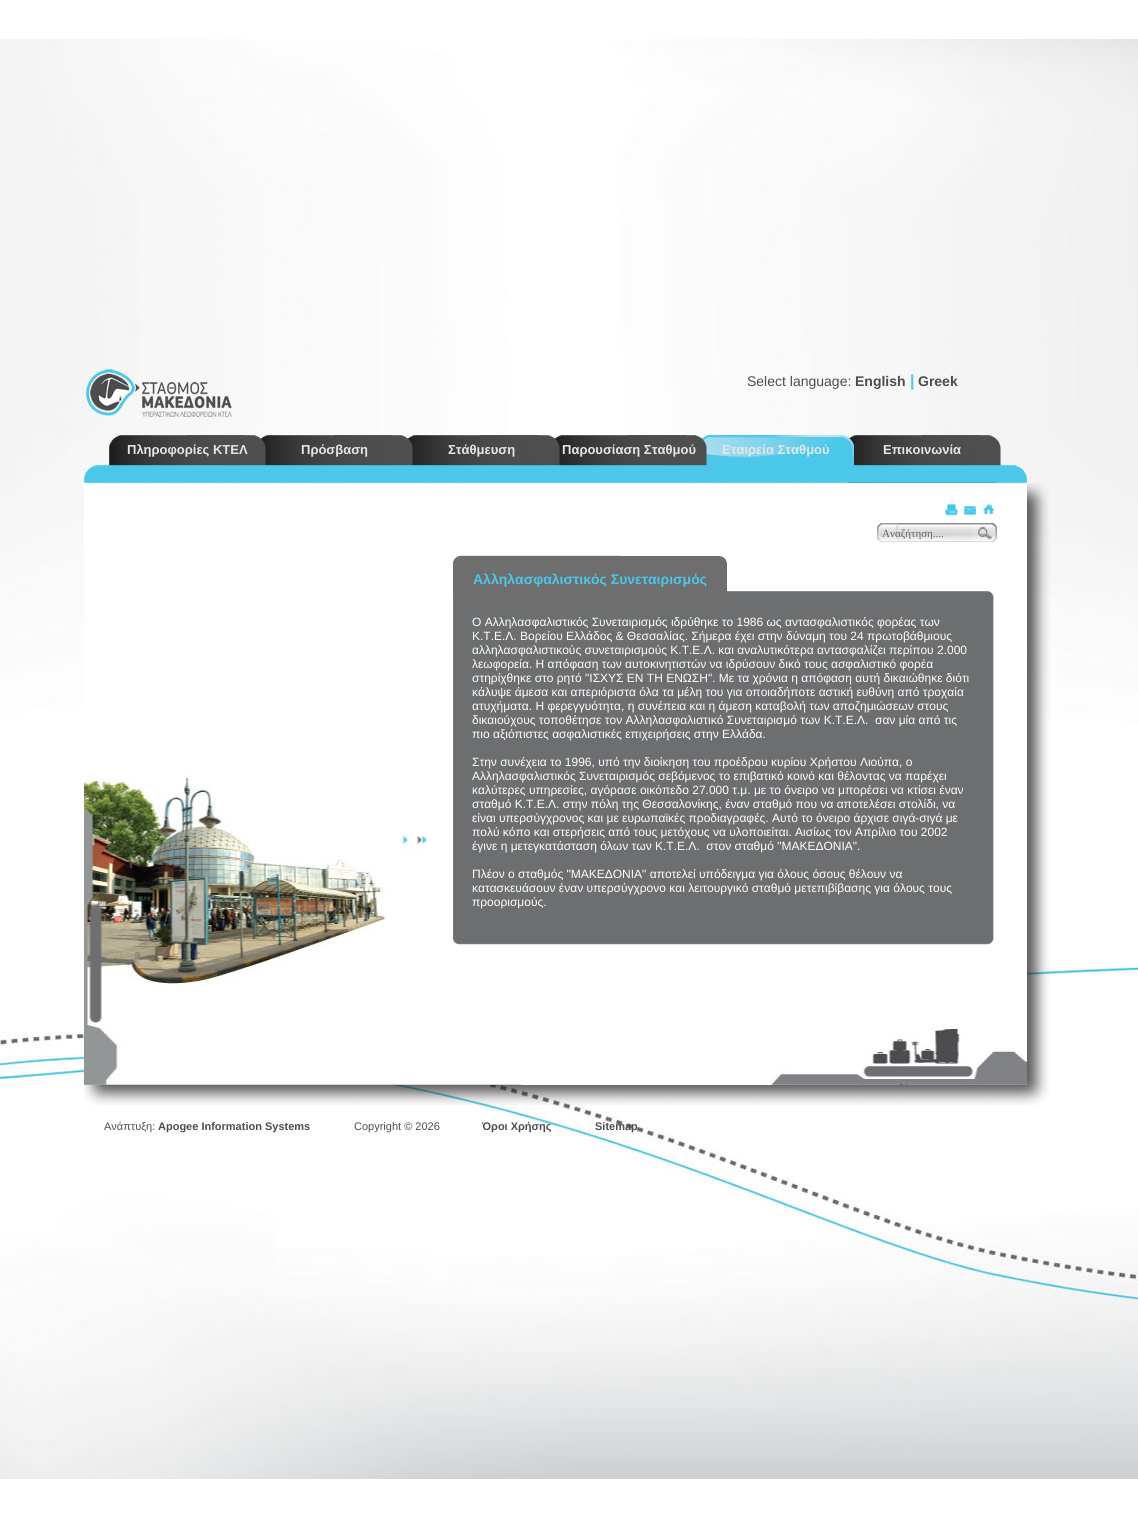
import math
import cairocffi as cairo

surface = cairo.ImageSurface(cairo.FORMAT_RGB24, 1138, 1518)
ctx = cairo.Context(surface)
options = cairo.FontOptions()
options.set_hint_metrics(cairo.HINT_METRICS_OFF)
options.set_hint_style(cairo.HINT_STYLE_NONE)
ctx.set_font_options(options)
ctx.set_miter_limit(4)


def rgb(r, g, b):
    ctx.set_source_rgb(r / 255, g / 255, b / 255)


def face(family, size, italic, bold):
    ctx.select_font_face(family, cairo.FONT_SLANT_ITALIC if italic else cairo.FONT_SLANT_NORMAL, cairo.FONT_WEIGHT_BOLD if bold else cairo.FONT_WEIGHT_NORMAL)
    ctx.set_font_size(size)


def label(x, y, s):
    ctx.move_to(x, y)
    ctx.show_text(s)


def rrect(x, y, w, h, r):
    ctx.new_sub_path()
    for i, (u, v) in enumerate([(x + w - r, y + h - r), (x + r, y + h - r), (x + r, y + r), (x + w - r, y + r)]):
        ctx.arc(u, v, r, i * math.pi / 2, (i + 1) * math.pi / 2)
    ctx.close_path()


def image(path, x, y, w, h):
    ctx.save()
    ctx.set_source_surface(cairo.ImageSurface.create_from_png(path), x, y)
    ctx.rectangle(x, y, w, h)
    ctx.fill()
    ctx.restore()


rgb(255, 255, 255)
ctx.paint()
image('image0.png', 0, 39, 1138, 1440)
face('Liberation Sans', 14, 0, 0)
rgb(77, 77, 79)
label(747, 386, 'Select language:')
face('Liberation Sans', 14, 0, 1)
label(855, 386, 'English')
face('Liberation Sans', 16, 0, 1)
rgb(75, 199, 233)
label(910, 386, '|')
face('Liberation Sans', 14, 0, 1)
rgb(77, 77, 79)
label(918, 386, 'Greek')
image('image1.png', 86, 369, 146, 48)
image('image7.png', 849, 435, 152, 31)
image('image6.png', 701, 435, 153, 31)
image('image5.png', 554, 435, 153, 31)
image('image4.png', 407, 435, 153, 31)
image('image3.png', 260, 435, 153, 31)
image('image2.png', 109, 435, 157, 31)
face('Liberation Sans', 13, 0, 1)
rgb(230, 230, 229)
label(127, 454, 'Πληροφορίες ΚΤΕΛ')
label(301, 454, 'Πρόσβαση')
label(448, 454, 'Στάθμευση')
label(562, 454, 'Παρουσίαση Σταθμού')
label(722, 454, 'Εταιρεία Σταθμού')
label(883, 454, 'Επικοινωνία')
image('image8.png', 847, 482, 151, 1)
image('image9.png', 84, 483, 966, 622)
image('image10.png', 84, 465, 943, 18)
image('image11.png', 84, 483, 943, 602)
image('image12.png', 945, 503, 13, 13)
image('image13.png', 964, 506, 12, 9)
image('image14.png', 983, 504, 12, 10)
image('image15.png', 896, 523, 101, 19)
image('image16.png', 877, 523, 95, 19)
ctx.save()
ctx.rectangle(882, 527, 85, 12)
ctx.clip()
face('Liberation Serif', 11, 0, 0)
rgb(99, 98, 100)
label(882, 537, 'Αναζήτηση....')
ctx.restore()
image('image17.png', 453, 555, 541, 390)
rgb(110, 110, 110)
rrect(453, 556, 274, 46, 8)
ctx.fill()
face('Liberation Sans', 14, 0, 1)
rgb(75, 199, 233)
label(473, 584, 'Αλληλασφαλιστικός Συνεταιρισμός')
face('Liberation Sans', 12, 0, 0)
rgb(255, 255, 255)
label(472, 626, 'Ο Αλληλασφαλιστικός Συνεταιρισμός ιδρύθηκε το 1986 ως αντασφαλιστικός φορέας των')
label(472, 640, 'Κ.Τ.Ε.Λ. Βορείου Ελλάδος & Θεσσαλίας. Σήμερα έχει στην δύναμη του 24 πρωτοβάθμιους')
label(472, 654, 'αλληλασφαλιστικούς συνεταιρισμούς Κ.Τ.Ε.Λ. και αναλυτικότερα αντασφαλίζει περίπου 2.000')
label(472, 668, 'λεωφορεία. Η απόφαση των αυτοκινητιστών να ιδρύσουν δικό τους ασφαλιστικό φορέα')
label(472, 682, 'στηρίχθηκε στο ρητό "ΙΣΧΥΣ ΕΝ ΤΗ ΕΝΩΣΗ". Με τα χρόνια η απόφαση αυτή δικαιώθηκε διότι')
label(472, 696, 'κάλυψε άμεσα και απεριόριστα όλα τα μέλη του για οποιαδήποτε αστική ευθύνη από τροχαία')
label(472, 710, 'ατυχήματα. Η φερεγγυότητα, η συνέπεια και η άμεση καταβολή των αποζημιώσεων στους')
label(472, 724, 'δικαιούχους τοποθέτησε τον Αλληλασφαλιστικό Συνεταιρισμό των Κ.Τ.Ε.Λ.  σαν μία από τις')
label(472, 738, 'πιο αξιόπιστες ασφαλιστικές επιχειρήσεις στην Ελλάδα.')
label(472, 766, 'Στην συνέχεια το 1996, υπό την διοίκηση του προέδρου κυρίου Χρήστου Λιούπα, ο')
label(472, 780, 'Αλληλασφαλιστικός Συνεταιρισμός σεβόμενος το επιβατικό κοινό και θέλοντας να παρέχει')
label(472, 794, 'καλύτερες υπηρεσίες, αγόρασε οικόπεδο 27.000 τ.μ. με το όνειρο να μπορέσει να κτίσει έναν')
label(472, 808, 'σταθμό Κ.Τ.Ε.Λ. στην πόλη της Θεσσαλονίκης, έναν σταθμό που να αποτελέσει στολίδι, να')
label(472, 822, 'είναι υπερσύγχρονος και με ευρωπαϊκές προδιαγραφές. Αυτό το όνειρο άρχισε σιγά-σιγά με')
label(472, 836, 'πολύ κόπο και στερήσεις από τους μετόχους να υλοποιείται. Αισίως τον Απρίλιο του 2002')
label(472, 850, 'έγινε η μετεγκατάσταση όλων των Κ.Τ.Ε.Λ.  στον σταθμό "ΜΑΚΕΔΟΝΙΑ".')
label(472, 878, 'Πλέον ο σταθμός "ΜΑΚΕΔΟΝΙΑ" αποτελεί υπόδειγμα για όλους όσους θέλουν να')
label(472, 892, 'κατασκευάσουν έναν υπερσύγχρονο και λειτουργικό σταθμό μετεπιβίβασης για όλους τους')
label(472, 906, 'προορισμούς.')
face('Liberation Sans', 11, 0, 0)
rgb(77, 77, 79)
label(104, 1130, 'Ανάπτυξη:')
face('Liberation Sans', 11, 0, 1)
label(158, 1130, 'Apogee Information Systems')
face('Liberation Sans', 11, 0, 0)
label(354, 1130, 'Copyright © 2026')
face('Liberation Sans', 11, 0, 1)
label(482, 1130, 'Όροι Χρήσης')
label(595, 1130, 'Sitemap')
surface.write_to_png('render.png')
